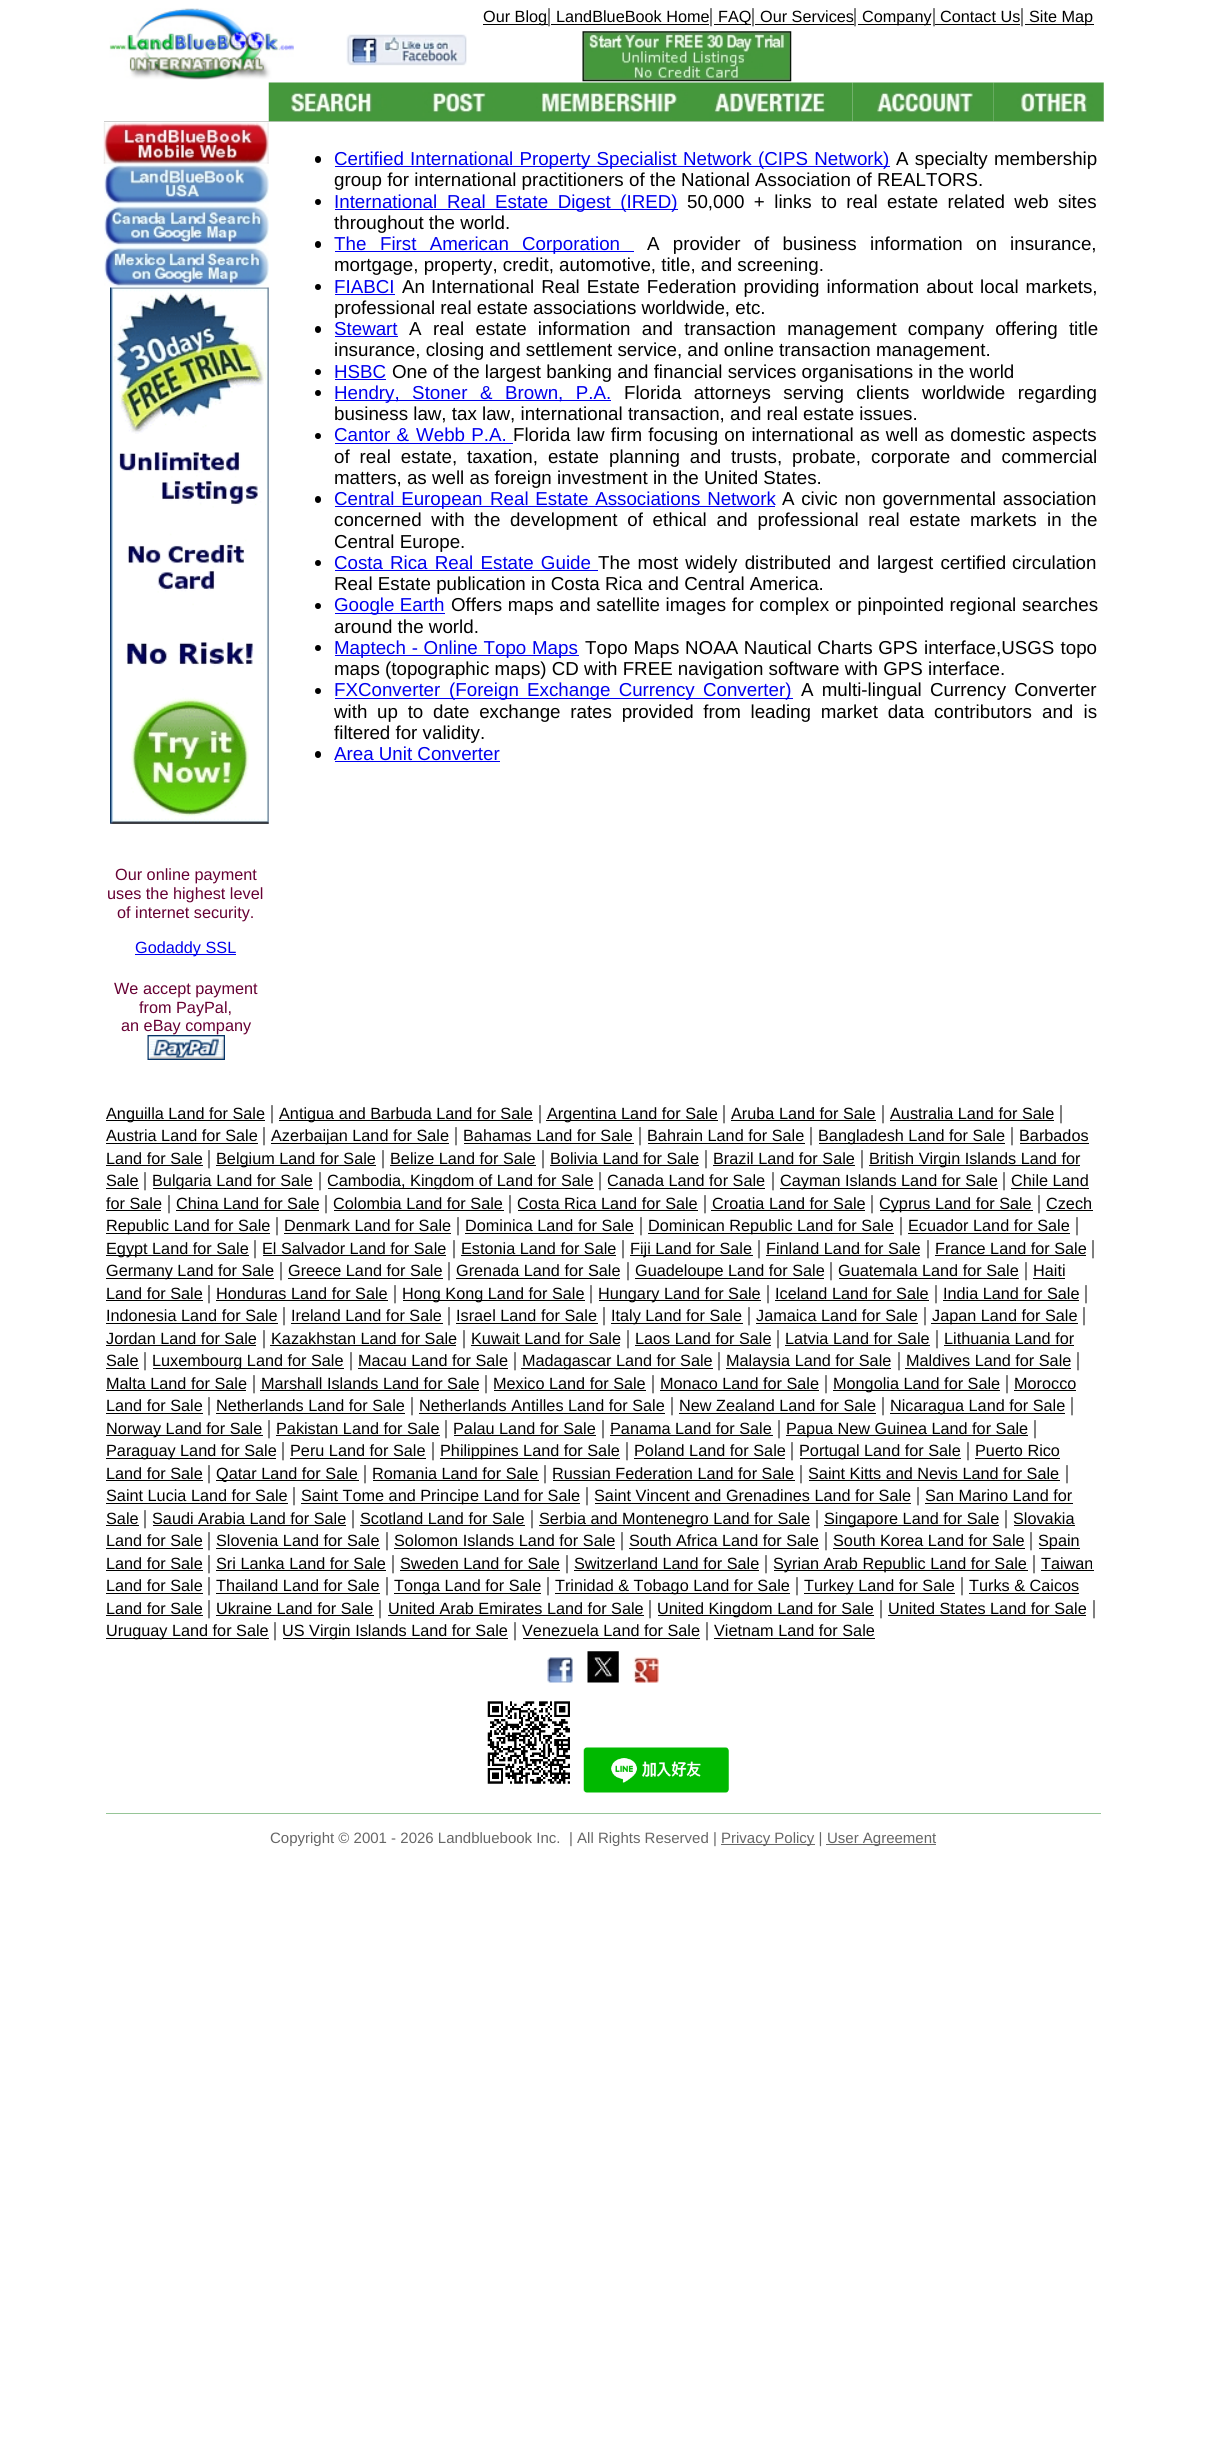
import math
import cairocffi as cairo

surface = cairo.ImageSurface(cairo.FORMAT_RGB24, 1206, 2452)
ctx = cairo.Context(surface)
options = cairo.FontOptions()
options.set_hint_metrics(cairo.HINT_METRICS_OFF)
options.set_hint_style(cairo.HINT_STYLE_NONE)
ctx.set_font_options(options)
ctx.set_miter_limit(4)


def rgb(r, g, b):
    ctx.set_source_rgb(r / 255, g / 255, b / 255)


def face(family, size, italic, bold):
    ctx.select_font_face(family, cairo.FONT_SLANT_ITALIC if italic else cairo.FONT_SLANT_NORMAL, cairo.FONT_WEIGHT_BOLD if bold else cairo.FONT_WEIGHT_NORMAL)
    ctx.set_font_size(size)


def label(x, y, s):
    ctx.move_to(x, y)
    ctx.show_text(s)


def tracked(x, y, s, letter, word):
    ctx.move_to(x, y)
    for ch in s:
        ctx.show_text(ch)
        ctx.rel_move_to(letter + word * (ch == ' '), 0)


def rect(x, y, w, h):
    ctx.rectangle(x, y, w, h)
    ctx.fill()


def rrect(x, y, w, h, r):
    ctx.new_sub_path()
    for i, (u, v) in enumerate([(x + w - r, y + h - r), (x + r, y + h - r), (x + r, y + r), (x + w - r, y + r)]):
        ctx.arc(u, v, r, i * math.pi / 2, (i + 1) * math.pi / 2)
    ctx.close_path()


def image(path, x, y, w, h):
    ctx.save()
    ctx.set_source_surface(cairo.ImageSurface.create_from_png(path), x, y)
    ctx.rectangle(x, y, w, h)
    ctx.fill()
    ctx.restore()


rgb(255, 255, 255)
ctx.paint()
image('image0.png', 109, 8, 185, 72)
rgb(0, 0, 0)
rect(483, 24, 65, 1)
face('Liberation Sans', 16.25, 0, 0)
label(483, 22, 'Our Blog')
face('Liberation Serif', 20, 0, 0)
label(547, 22, '|')
face('Liberation Sans', 16.25, 0, 0)
label(556, 22, 'LandBlueBook Home')
rect(551, 24, 158, 1)
face('Liberation Serif', 20, 0, 0)
label(709, 22, '|')
rect(714, 24, 37, 1)
face('Liberation Sans', 16.25, 0, 0)
label(718, 22, 'FAQ')
face('Liberation Serif', 20, 0, 0)
label(751, 22, '|')
face('Liberation Sans', 16.25, 0, 0)
label(760, 22, 'Our Services')
rect(755, 24, 99, 1)
face('Liberation Serif', 20, 0, 0)
label(853, 22, '|')
rect(858, 24, 73, 1)
face('Liberation Sans', 16.25, 0, 0)
label(862, 22, 'Company')
face('Liberation Serif', 20, 0, 0)
label(932, 22, '|')
face('Liberation Sans', 16.25, 0, 0)
label(940, 22, 'Contact Us')
rect(935, 24, 85, 1)
face('Liberation Serif', 20, 0, 0)
label(1020, 22, '|')
rect(1025, 24, 69, 1)
face('Liberation Sans', 16.25, 0, 0)
label(1029, 22, 'Site Map')
image('image1.png', 346, 34, 121, 32)
image('image2.png', 582, 31, 210, 51)
rgb(204, 204, 204)
rect(104, 121, 1000, 1)
image('image3.png', 268, 82, 127, 40)
image('image4.png', 395, 82, 120, 40)
image('image5.png', 515, 82, 175, 40)
image('image6.png', 690, 82, 163, 40)
image('image7.png', 852, 82, 142, 40)
image('image8.png', 993, 82, 111, 40)
rgb(0, 0, 0)
rrect(315, 156, 6, 7, 3)
ctx.fill()
face('Liberation Sans', 18.75, 0, 0)
rgb(0, 0, 238)
label(334, 165, 'Certified')
rect(335, 166, 555, 1)
tracked(410, 165, 'International Property Specialist Network (CIPS Network)', 0, 1)
rgb(0, 0, 0)
tracked(896, 165, 'A specialty', 0, 1)
label(994, 165, 'membership')
label(334, 186, 'group for international practitioners of the National Association of REALTORS.')
ctx.new_path()
ctx.arc(318, 202, 3, 0, 2 * math.pi)
ctx.fill()
rgb(0, 0, 238)
label(334, 208, 'International')
rect(335, 209, 343, 1)
tracked(447, 208, 'Real Estate Digest (IRED)', 0, 4.25)
rgb(0, 0, 0)
tracked(687, 208, '50,000 + links to real estate related web', 0, 4.25)
label(1058, 208, 'sites')
label(334, 229, 'throughout the world.')
rrect(315, 241, 6, 7, 3)
ctx.fill()
rgb(0, 0, 238)
label(334, 250, 'The')
rect(335, 251, 299, 1)
tracked(380, 250, 'First American Corporation', 0, 8)
rgb(0, 0, 0)
tracked(647, 250, 'A provider of business', 0, 8)
tracked(870, 250, 'information on insurance,', 0, 8)
label(334, 271, 'mortgage, property, credit, automotive, title, and screening.')
ctx.new_path()
ctx.arc(318, 287, 3, 0, 2 * math.pi)
ctx.fill()
rgb(0, 0, 238)
label(334, 293, 'FIABCI')
rect(335, 294, 60, 1)
rgb(0, 0, 0)
label(402, 293, 'An')
tracked(431, 293, 'International Real Estate Federation providing information about local markets,', 0, 1.75)
label(334, 314, 'professional real estate associations worldwide, etc.')
rrect(315, 326, 6, 7, 3)
ctx.fill()
rgb(0, 0, 238)
label(334, 335, 'Stewart')
rect(335, 336, 63, 1)
rgb(0, 0, 0)
label(409, 335, 'A')
tracked(433, 335, 'real estate information and transaction management company offering title', 0, 6)
label(334, 356, 'insurance, closing and settlement service, and online transaction management.')
ctx.new_path()
ctx.arc(318, 372, 3, 0, 2 * math.pi)
ctx.fill()
rgb(0, 0, 238)
label(334, 378, 'HSBC')
rect(335, 379, 51, 1)
rgb(0, 0, 0)
label(392, 378, 'One of the largest banking and financial services organisations in the world')
ctx.new_path()
ctx.arc(318, 393, 3, 0, 2 * math.pi)
ctx.fill()
rgb(0, 0, 238)
rect(335, 400, 276, 1)
tracked(334, 399, 'Hendry, Stoner', 0, 7.25)
tracked(480, 399, '& Brown, P.A.', 0, 7.25)
rgb(0, 0, 0)
tracked(624, 399, 'Florida attorneys serving clients worldwide regarding', 0, 7.25)
label(334, 420, 'business law, tax law, international transaction, and real estate issues.')
ctx.new_path()
ctx.arc(318, 436, 3, 0, 2 * math.pi)
ctx.fill()
rgb(0, 0, 238)
tracked(334, 441, 'Cantor &', 0, 1)
rect(335, 443, 178, 1)
tracked(416, 441, 'Webb P.A.', 0, 1)
rgb(0, 0, 0)
tracked(513, 441, 'Florida law firm focusing on international as well as domestic', 0, 1)
label(1032, 441, 'aspects')
tracked(334, 463, 'of real estate, taxation, estate planning and trusts, probate,', 0, 4.75)
tracked(871, 463, 'corporate and commercial', 0, 4.75)
label(334, 484, 'matters, as well as foreign investment in the United States.')
rrect(315, 496, 6, 7, 3)
ctx.fill()
rgb(0, 0, 238)
rect(335, 506, 440, 1)
tracked(334, 505, 'Central European', 0, 1.5)
tracked(490, 505, 'Real Estate Associations Network', 0, 1.5)
rgb(0, 0, 0)
tracked(782, 505, 'A civic non governmental association', 0, 1.5)
tracked(334, 526, 'concerned with the development of ethical and professional real estate markets', 0, 4.5)
tracked(1047, 526, 'in the', 0, 4.5)
label(334, 548, 'Central Europe.')
ctx.new_path()
ctx.arc(318, 563, 3, 0, 2 * math.pi)
ctx.fill()
rgb(0, 0, 238)
label(334, 569, 'Costa')
rect(335, 570, 263, 1)
tracked(390, 569, 'Rica Real Estate Guide', 0, 2)
rgb(0, 0, 0)
tracked(598, 569, 'The most widely distributed and largest certified', 0, 2)
label(1012, 569, 'circulation')
label(334, 590, 'Real Estate publication in Costa Rica and Central America.')
ctx.new_path()
ctx.arc(318, 606, 3, 0, 2 * math.pi)
ctx.fill()
rgb(0, 0, 238)
rect(335, 613, 110, 1)
label(334, 611, 'Google Earth')
rgb(0, 0, 0)
tracked(451, 611, 'Offers maps and satellite images for complex or pinpointed regional searches', 0, 0.5)
label(334, 633, 'around the world.')
ctx.new_path()
ctx.arc(318, 648, 3, 0, 2 * math.pi)
ctx.fill()
rgb(0, 0, 238)
rect(335, 655, 244, 1)
tracked(334, 654, 'Maptech - Online Topo Maps', 0, 0.5)
rgb(0, 0, 0)
tracked(585, 654, 'Topo Maps NOAA Nautical Charts GPS', 0, 0.5)
tracked(924, 654, 'interface,USGS topo', 0, 1)
label(334, 675, 'maps (topographic maps) CD with FREE navigation software with GPS interface.')
ctx.new_path()
ctx.arc(318, 691, 3, 0, 2 * math.pi)
ctx.fill()
rgb(0, 0, 238)
label(334, 696, 'FXConverter')
rect(335, 698, 458, 1)
tracked(449, 696, '(Foreign Exchange Currency Converter)', 0, 3)
rgb(0, 0, 0)
tracked(801, 696, 'A multi-lingual Currency Converter', 0, 3)
tracked(334, 718, 'with up to date exchange rates provided from leading market data contributors', 0, 4.5)
tracked(1042, 718, 'and is', 0, 5)
label(334, 739, 'filtered for validity.')
rrect(315, 751, 6, 7, 3)
ctx.fill()
rgb(0, 0, 238)
label(334, 760, 'Area Unit Converter')
rect(335, 761, 165, 1)
image('image9.png', 103, 122, 166, 42)
image('image10.png', 104, 163, 165, 42)
image('image11.png', 104, 205, 165, 41)
image('image12.png', 104, 246, 165, 42)
image('image13.png', 110, 287, 159, 537)
face('Liberation Sans', 16.25, 0, 0)
rgb(102, 0, 51)
label(115, 880, 'Our online payment')
label(107, 899, 'uses the highest level')
label(117, 918, 'of internet security.')
rgb(0, 0, 238)
rect(135, 954, 101, 1)
label(135, 953, 'Godaddy SSL')
rgb(102, 0, 51)
label(114, 994, 'We accept payment')
label(139, 1013, 'from PayPal,')
label(121, 1031, 'an eBay company')
image('image14.png', 147, 1035, 78, 25)
rgb(0, 0, 0)
rect(106, 1120, 159, 1)
label(106, 1119, 'Anguilla Land for Sale')
face('Liberation Serif', 20, 0, 0)
label(270, 1119, '|')
rect(279, 1120, 254, 1)
face('Liberation Sans', 16.25, 0, 0)
label(279, 1119, 'Antigua and Barbuda Land for Sale')
face('Liberation Serif', 20, 0, 0)
label(538, 1119, '|')
rect(546, 1120, 172, 1)
face('Liberation Sans', 16.25, 0, 0)
label(547, 1119, 'Argentina Land for Sale')
face('Liberation Serif', 20, 0, 0)
label(722, 1119, '|')
face('Liberation Sans', 16.25, 0, 0)
label(731, 1119, 'Aruba Land for Sale')
rect(731, 1120, 145, 1)
face('Liberation Serif', 20, 0, 0)
label(881, 1119, '|')
face('Liberation Sans', 16.25, 0, 0)
label(890, 1119, 'Australia Land for Sale')
rect(890, 1120, 164, 1)
face('Liberation Serif', 20, 0, 0)
label(1059, 1119, '|')
face('Liberation Sans', 16.25, 0, 0)
label(106, 1141, 'Austria Land for Sale')
rect(106, 1143, 152, 1)
face('Liberation Serif', 20, 0, 0)
label(262, 1141, '|')
rect(271, 1143, 178, 1)
face('Liberation Sans', 16.25, 0, 0)
label(271, 1141, 'Azerbaijan Land for Sale')
face('Liberation Serif', 20, 0, 0)
label(454, 1141, '|')
face('Liberation Sans', 16.25, 0, 0)
label(463, 1141, 'Bahamas Land for Sale')
rect(464, 1143, 170, 1)
face('Liberation Serif', 20, 0, 0)
label(638, 1141, '|')
face('Liberation Sans', 16.25, 0, 0)
label(647, 1141, 'Bahrain Land for Sale')
rect(648, 1143, 157, 1)
face('Liberation Serif', 20, 0, 0)
label(809, 1141, '|')
rect(819, 1143, 186, 1)
face('Liberation Sans', 16.25, 0, 0)
label(818, 1141, 'Bangladesh Land for Sale')
face('Liberation Serif', 20, 0, 0)
label(1010, 1141, '|')
face('Liberation Sans', 16.25, 0, 0)
label(1019, 1141, 'Barbados')
rect(1020, 1143, 69, 1)
label(106, 1164, 'Land for Sale')
rect(106, 1165, 97, 1)
face('Liberation Serif', 20, 0, 0)
label(207, 1164, '|')
rect(216, 1165, 160, 1)
face('Liberation Sans', 16.25, 0, 0)
label(216, 1164, 'Belgium Land for Sale')
face('Liberation Serif', 20, 0, 0)
label(381, 1164, '|')
face('Liberation Sans', 16.25, 0, 0)
label(390, 1164, 'Belize Land for Sale')
rect(390, 1165, 146, 1)
face('Liberation Serif', 20, 0, 0)
label(541, 1164, '|')
face('Liberation Sans', 16.25, 0, 0)
label(550, 1164, 'Bolivia Land for Sale')
rect(550, 1165, 149, 1)
face('Liberation Serif', 20, 0, 0)
label(704, 1164, '|')
face('Liberation Sans', 16.25, 0, 0)
label(713, 1164, 'Brazil Land for Sale')
rect(713, 1165, 142, 1)
face('Liberation Serif', 20, 0, 0)
label(860, 1164, '|')
rect(869, 1165, 211, 1)
face('Liberation Sans', 16.25, 0, 0)
label(869, 1164, 'British Virgin Islands Land for')
label(106, 1186, 'Sale')
rect(106, 1188, 33, 1)
face('Liberation Serif', 20, 0, 0)
label(143, 1186, '|')
rect(153, 1188, 160, 1)
face('Liberation Sans', 16.25, 0, 0)
label(152, 1186, 'Bulgaria Land for Sale')
face('Liberation Serif', 20, 0, 0)
label(318, 1186, '|')
rect(328, 1188, 266, 1)
face('Liberation Sans', 16.25, 0, 0)
label(327, 1186, 'Cambodia, Kingdom of Land for Sale')
face('Liberation Serif', 20, 0, 0)
label(598, 1186, '|')
face('Liberation Sans', 16.25, 0, 0)
label(607, 1186, 'Canada Land for Sale')
rect(608, 1188, 157, 1)
face('Liberation Serif', 20, 0, 0)
label(771, 1186, '|')
rect(780, 1188, 218, 1)
face('Liberation Sans', 16.25, 0, 0)
label(780, 1186, 'Cayman Islands Land for Sale')
face('Liberation Serif', 20, 0, 0)
label(1002, 1186, '|')
face('Liberation Sans', 16.25, 0, 0)
label(1011, 1186, 'Chile Land')
rect(1011, 1188, 78, 1)
label(106, 1209, 'for Sale')
rect(106, 1210, 55, 1)
face('Liberation Serif', 20, 0, 0)
label(167, 1209, '|')
face('Liberation Sans', 16.25, 0, 0)
label(176, 1209, 'China Land for Sale')
rect(176, 1210, 143, 1)
face('Liberation Serif', 20, 0, 0)
label(324, 1209, '|')
face('Liberation Sans', 16.25, 0, 0)
label(333, 1209, 'Colombia Land for Sale')
rect(334, 1210, 170, 1)
face('Liberation Serif', 20, 0, 0)
label(508, 1209, '|')
face('Liberation Sans', 16.25, 0, 0)
label(517, 1209, 'Costa Rica Land for Sale')
rect(518, 1210, 180, 1)
face('Liberation Serif', 20, 0, 0)
label(703, 1209, '|')
face('Liberation Sans', 16.25, 0, 0)
label(712, 1209, 'Croatia Land for Sale')
rect(711, 1210, 154, 1)
face('Liberation Serif', 20, 0, 0)
label(870, 1209, '|')
rect(880, 1210, 153, 1)
face('Liberation Sans', 16.25, 0, 0)
label(879, 1209, 'Cyprus Land for Sale')
face('Liberation Serif', 20, 0, 0)
label(1037, 1209, '|')
face('Liberation Sans', 16.25, 0, 0)
label(1046, 1209, 'Czech')
rect(1046, 1210, 47, 1)
rect(106, 1233, 164, 1)
label(106, 1231, 'Republic Land for Sale')
face('Liberation Serif', 20, 0, 0)
label(275, 1231, '|')
face('Liberation Sans', 16.25, 0, 0)
label(284, 1231, 'Denmark Land for Sale')
rect(284, 1233, 167, 1)
face('Liberation Serif', 20, 0, 0)
label(456, 1231, '|')
face('Liberation Sans', 16.25, 0, 0)
label(465, 1231, 'Dominica Land for Sale')
rect(465, 1233, 169, 1)
face('Liberation Serif', 20, 0, 0)
label(639, 1231, '|')
rect(648, 1233, 246, 1)
face('Liberation Sans', 16.25, 0, 0)
label(648, 1231, 'Dominican Republic Land for Sale')
face('Liberation Serif', 20, 0, 0)
label(899, 1231, '|')
face('Liberation Sans', 16.25, 0, 0)
label(908, 1231, 'Ecuador Land for Sale')
rect(908, 1233, 162, 1)
face('Liberation Serif', 20, 0, 0)
label(1075, 1231, '|')
rect(106, 1255, 143, 1)
face('Liberation Sans', 16.25, 0, 0)
label(106, 1254, 'Egypt Land for Sale')
face('Liberation Serif', 20, 0, 0)
label(253, 1254, '|')
face('Liberation Sans', 16.25, 0, 0)
label(262, 1254, 'El Salvador Land for Sale')
rect(263, 1255, 183, 1)
face('Liberation Serif', 20, 0, 0)
label(452, 1254, '|')
face('Liberation Sans', 16.25, 0, 0)
label(461, 1254, 'Estonia Land for Sale')
rect(461, 1255, 155, 1)
face('Liberation Serif', 20, 0, 0)
label(621, 1254, '|')
rect(630, 1255, 123, 1)
face('Liberation Sans', 16.25, 0, 0)
label(630, 1254, 'Fiji Land for Sale')
face('Liberation Serif', 20, 0, 0)
label(757, 1254, '|')
face('Liberation Sans', 16.25, 0, 0)
label(766, 1254, 'Finland Land for Sale')
rect(766, 1255, 154, 1)
face('Liberation Serif', 20, 0, 0)
label(926, 1254, '|')
face('Liberation Sans', 16.25, 0, 0)
label(935, 1254, 'France Land for Sale')
rect(935, 1255, 151, 1)
face('Liberation Serif', 20, 0, 0)
label(1091, 1254, '|')
rect(106, 1278, 168, 1)
face('Liberation Sans', 16.25, 0, 0)
label(106, 1276, 'Germany Land for Sale')
face('Liberation Serif', 20, 0, 0)
label(279, 1276, '|')
face('Liberation Sans', 16.25, 0, 0)
label(288, 1276, 'Greece Land for Sale')
rect(288, 1278, 155, 1)
face('Liberation Serif', 20, 0, 0)
label(447, 1276, '|')
face('Liberation Sans', 16.25, 0, 0)
label(456, 1276, 'Grenada Land for Sale')
rect(456, 1278, 164, 1)
face('Liberation Serif', 20, 0, 0)
label(626, 1276, '|')
rect(635, 1278, 189, 1)
face('Liberation Sans', 16.25, 0, 0)
label(635, 1276, 'Guadeloupe Land for Sale')
face('Liberation Serif', 20, 0, 0)
label(829, 1276, '|')
face('Liberation Sans', 16.25, 0, 0)
label(838, 1276, 'Guatemala Land for Sale')
rect(839, 1278, 180, 1)
face('Liberation Serif', 20, 0, 0)
label(1024, 1276, '|')
face('Liberation Sans', 16.25, 0, 0)
label(1033, 1276, 'Haiti')
rect(1033, 1278, 32, 1)
label(106, 1299, 'Land for Sale')
rect(106, 1300, 97, 1)
face('Liberation Serif', 20, 0, 0)
label(207, 1299, '|')
face('Liberation Sans', 16.25, 0, 0)
label(216, 1299, 'Honduras Land for Sale')
rect(216, 1300, 172, 1)
face('Liberation Serif', 20, 0, 0)
label(393, 1299, '|')
rect(403, 1300, 182, 1)
face('Liberation Sans', 16.25, 0, 0)
label(402, 1299, 'Hong Kong Land for Sale')
face('Liberation Serif', 20, 0, 0)
label(589, 1299, '|')
rect(599, 1300, 162, 1)
face('Liberation Sans', 16.25, 0, 0)
label(598, 1299, 'Hungary Land for Sale')
face('Liberation Serif', 20, 0, 0)
label(766, 1299, '|')
face('Liberation Sans', 16.25, 0, 0)
label(775, 1299, 'Iceland Land for Sale')
rect(775, 1300, 154, 1)
face('Liberation Serif', 20, 0, 0)
label(934, 1299, '|')
face('Liberation Sans', 16.25, 0, 0)
label(943, 1299, 'India Land for Sale')
rect(943, 1300, 136, 1)
face('Liberation Serif', 20, 0, 0)
label(1084, 1299, '|')
face('Liberation Sans', 16.25, 0, 0)
label(106, 1321, 'Indonesia Land for Sale')
rect(106, 1323, 172, 1)
face('Liberation Serif', 20, 0, 0)
label(282, 1321, '|')
face('Liberation Sans', 16.25, 0, 0)
label(291, 1321, 'Ireland Land for Sale')
rect(291, 1323, 152, 1)
face('Liberation Serif', 20, 0, 0)
label(447, 1321, '|')
face('Liberation Sans', 16.25, 0, 0)
label(456, 1321, 'Israel Land for Sale')
rect(456, 1323, 142, 1)
face('Liberation Serif', 20, 0, 0)
label(602, 1321, '|')
rect(611, 1323, 132, 1)
face('Liberation Sans', 16.25, 0, 0)
label(611, 1321, 'Italy Land for Sale')
face('Liberation Serif', 20, 0, 0)
label(747, 1321, '|')
face('Liberation Sans', 16.25, 0, 0)
label(756, 1321, 'Jamaica Land for Sale')
rect(756, 1323, 162, 1)
face('Liberation Serif', 20, 0, 0)
label(923, 1321, '|')
rect(931, 1323, 147, 1)
face('Liberation Sans', 16.25, 0, 0)
label(932, 1321, 'Japan Land for Sale')
face('Liberation Serif', 20, 0, 0)
label(1082, 1321, '|')
face('Liberation Sans', 16.25, 0, 0)
label(106, 1344, 'Jordan Land for Sale')
rect(106, 1345, 150, 1)
face('Liberation Serif', 20, 0, 0)
label(262, 1344, '|')
face('Liberation Sans', 16.25, 0, 0)
label(271, 1344, 'Kazakhstan Land for Sale')
rect(270, 1345, 186, 1)
face('Liberation Serif', 20, 0, 0)
label(462, 1344, '|')
face('Liberation Sans', 16.25, 0, 0)
label(471, 1344, 'Kuwait Land for Sale')
rect(471, 1345, 149, 1)
face('Liberation Serif', 20, 0, 0)
label(626, 1344, '|')
face('Liberation Sans', 16.25, 0, 0)
label(635, 1344, 'Laos Land for Sale')
rect(635, 1345, 136, 1)
face('Liberation Serif', 20, 0, 0)
label(776, 1344, '|')
face('Liberation Sans', 16.25, 0, 0)
label(785, 1344, 'Latvia Land for Sale')
rect(785, 1345, 145, 1)
face('Liberation Serif', 20, 0, 0)
label(935, 1344, '|')
face('Liberation Sans', 16.25, 0, 0)
label(944, 1344, 'Lithuania Land for')
rect(944, 1345, 130, 1)
label(106, 1366, 'Sale')
rect(106, 1368, 33, 1)
face('Liberation Serif', 20, 0, 0)
label(143, 1366, '|')
rect(153, 1368, 191, 1)
face('Liberation Sans', 16.25, 0, 0)
label(152, 1366, 'Luxembourg Land for Sale')
face('Liberation Serif', 20, 0, 0)
label(349, 1366, '|')
face('Liberation Sans', 16.25, 0, 0)
label(358, 1366, 'Macau Land for Sale')
rect(358, 1368, 150, 1)
face('Liberation Serif', 20, 0, 0)
label(513, 1366, '|')
rect(521, 1368, 192, 1)
face('Liberation Sans', 16.25, 0, 0)
label(522, 1366, 'Madagascar Land for Sale')
face('Liberation Serif', 20, 0, 0)
label(717, 1366, '|')
rect(726, 1368, 165, 1)
face('Liberation Sans', 16.25, 0, 0)
label(726, 1366, 'Malaysia Land for Sale')
face('Liberation Serif', 20, 0, 0)
label(897, 1366, '|')
face('Liberation Sans', 16.25, 0, 0)
label(906, 1366, 'Maldives Land for Sale')
rect(905, 1368, 166, 1)
face('Liberation Serif', 20, 0, 0)
label(1076, 1366, '|')
face('Liberation Sans', 16.25, 0, 0)
label(106, 1389, 'Malta Land for Sale')
rect(106, 1390, 140, 1)
face('Liberation Serif', 20, 0, 0)
label(252, 1389, '|')
face('Liberation Sans', 16.25, 0, 0)
label(261, 1389, 'Marshall Islands Land for Sale')
rect(260, 1390, 219, 1)
face('Liberation Serif', 20, 0, 0)
label(484, 1389, '|')
face('Liberation Sans', 16.25, 0, 0)
label(493, 1389, 'Mexico Land for Sale')
rect(494, 1390, 152, 1)
face('Liberation Serif', 20, 0, 0)
label(651, 1389, '|')
face('Liberation Sans', 16.25, 0, 0)
label(660, 1389, 'Monaco Land for Sale')
rect(660, 1390, 159, 1)
face('Liberation Serif', 20, 0, 0)
label(824, 1389, '|')
rect(833, 1390, 167, 1)
face('Liberation Sans', 16.25, 0, 0)
label(833, 1389, 'Mongolia Land for Sale')
face('Liberation Serif', 20, 0, 0)
label(1005, 1389, '|')
face('Liberation Sans', 16.25, 0, 0)
label(1014, 1389, 'Morocco')
rect(1014, 1390, 62, 1)
label(106, 1411, 'Land for Sale')
rect(106, 1413, 97, 1)
face('Liberation Serif', 20, 0, 0)
label(207, 1411, '|')
face('Liberation Sans', 16.25, 0, 0)
label(216, 1411, 'Netherlands Land for Sale')
rect(216, 1413, 189, 1)
face('Liberation Serif', 20, 0, 0)
label(410, 1411, '|')
face('Liberation Sans', 16.25, 0, 0)
label(419, 1411, 'Netherlands Antilles Land for Sale')
rect(419, 1413, 246, 1)
face('Liberation Serif', 20, 0, 0)
label(670, 1411, '|')
face('Liberation Sans', 16.25, 0, 0)
label(679, 1411, 'New Zealand Land for Sale')
rect(679, 1413, 197, 1)
face('Liberation Serif', 20, 0, 0)
label(881, 1411, '|')
rect(890, 1413, 175, 1)
face('Liberation Sans', 16.25, 0, 0)
label(890, 1411, 'Nicaragua Land for Sale')
face('Liberation Serif', 20, 0, 0)
label(1070, 1411, '|')
rect(106, 1435, 157, 1)
face('Liberation Sans', 16.25, 0, 0)
label(106, 1434, 'Norway Land for Sale')
face('Liberation Serif', 20, 0, 0)
label(267, 1434, '|')
face('Liberation Sans', 16.25, 0, 0)
label(276, 1434, 'Pakistan Land for Sale')
rect(276, 1435, 164, 1)
face('Liberation Serif', 20, 0, 0)
label(444, 1434, '|')
face('Liberation Sans', 16.25, 0, 0)
label(453, 1434, 'Palau Land for Sale')
rect(454, 1435, 142, 1)
face('Liberation Serif', 20, 0, 0)
label(601, 1434, '|')
face('Liberation Sans', 16.25, 0, 0)
label(610, 1434, 'Panama Land for Sale')
rect(610, 1435, 163, 1)
face('Liberation Serif', 20, 0, 0)
label(777, 1434, '|')
rect(786, 1435, 242, 1)
face('Liberation Sans', 16.25, 0, 0)
label(786, 1434, 'Papua New Guinea Land for Sale')
face('Liberation Serif', 20, 0, 0)
label(1033, 1434, '|')
rect(106, 1458, 170, 1)
face('Liberation Sans', 16.25, 0, 0)
label(106, 1456, 'Paraguay Land for Sale')
face('Liberation Serif', 20, 0, 0)
label(281, 1456, '|')
face('Liberation Sans', 16.25, 0, 0)
label(290, 1456, 'Peru Land for Sale')
rect(290, 1458, 136, 1)
face('Liberation Serif', 20, 0, 0)
label(431, 1456, '|')
rect(440, 1458, 180, 1)
face('Liberation Sans', 16.25, 0, 0)
label(440, 1456, 'Philippines Land for Sale')
face('Liberation Serif', 20, 0, 0)
label(625, 1456, '|')
face('Liberation Sans', 16.25, 0, 0)
label(634, 1456, 'Poland Land for Sale')
rect(634, 1458, 151, 1)
face('Liberation Serif', 20, 0, 0)
label(790, 1456, '|')
rect(800, 1458, 161, 1)
face('Liberation Sans', 16.25, 0, 0)
label(799, 1456, 'Portugal Land for Sale')
face('Liberation Serif', 20, 0, 0)
label(966, 1456, '|')
face('Liberation Sans', 16.25, 0, 0)
label(975, 1456, 'Puerto Rico')
rect(975, 1458, 85, 1)
label(106, 1479, 'Land for Sale')
rect(106, 1480, 97, 1)
face('Liberation Serif', 20, 0, 0)
label(207, 1479, '|')
rect(216, 1480, 143, 1)
face('Liberation Sans', 16.25, 0, 0)
label(216, 1479, 'Qatar Land for Sale')
face('Liberation Serif', 20, 0, 0)
label(363, 1479, '|')
face('Liberation Sans', 16.25, 0, 0)
label(372, 1479, 'Romania Land for Sale')
rect(373, 1480, 166, 1)
face('Liberation Serif', 20, 0, 0)
label(543, 1479, '|')
face('Liberation Sans', 16.25, 0, 0)
label(552, 1479, 'Russian Federation Land for Sale')
rect(553, 1480, 242, 1)
face('Liberation Serif', 20, 0, 0)
label(799, 1479, '|')
face('Liberation Sans', 16.25, 0, 0)
label(808, 1479, 'Saint Kitts and Nevis Land for Sale')
rect(809, 1480, 251, 1)
face('Liberation Serif', 20, 0, 0)
label(1065, 1479, '|')
face('Liberation Sans', 16.25, 0, 0)
label(106, 1501, 'Saint Lucia Land for Sale')
rect(106, 1503, 182, 1)
face('Liberation Serif', 20, 0, 0)
label(292, 1501, '|')
rect(301, 1503, 279, 1)
face('Liberation Sans', 16.25, 0, 0)
label(301, 1501, 'Saint Tome and Principe Land for Sale')
face('Liberation Serif', 20, 0, 0)
label(585, 1501, '|')
face('Liberation Sans', 16.25, 0, 0)
label(594, 1501, 'Saint Vincent and Grenadines Land for Sale')
rect(595, 1503, 316, 1)
face('Liberation Serif', 20, 0, 0)
label(916, 1501, '|')
face('Liberation Sans', 16.25, 0, 0)
label(925, 1501, 'San Marino Land for')
rect(925, 1503, 148, 1)
label(106, 1524, 'Sale')
rect(106, 1525, 33, 1)
face('Liberation Serif', 20, 0, 0)
label(143, 1524, '|')
face('Liberation Sans', 16.25, 0, 0)
label(152, 1524, 'Saudi Arabia Land for Sale')
rect(153, 1525, 193, 1)
face('Liberation Serif', 20, 0, 0)
label(351, 1524, '|')
face('Liberation Sans', 16.25, 0, 0)
label(360, 1524, 'Scotland Land for Sale')
rect(360, 1525, 165, 1)
face('Liberation Serif', 20, 0, 0)
label(530, 1524, '|')
rect(539, 1525, 271, 1)
face('Liberation Sans', 16.25, 0, 0)
label(539, 1524, 'Serbia and Montenegro Land for Sale')
face('Liberation Serif', 20, 0, 0)
label(815, 1524, '|')
rect(824, 1525, 175, 1)
face('Liberation Sans', 16.25, 0, 0)
label(824, 1524, 'Singapore Land for Sale')
face('Liberation Serif', 20, 0, 0)
label(1004, 1524, '|')
face('Liberation Sans', 16.25, 0, 0)
label(1013, 1524, 'Slovakia')
rect(1014, 1525, 61, 1)
label(106, 1546, 'Land for Sale')
rect(106, 1548, 97, 1)
face('Liberation Serif', 20, 0, 0)
label(207, 1546, '|')
face('Liberation Sans', 16.25, 0, 0)
label(216, 1546, 'Slovenia Land for Sale')
rect(216, 1548, 164, 1)
face('Liberation Serif', 20, 0, 0)
label(385, 1546, '|')
face('Liberation Sans', 16.25, 0, 0)
label(394, 1546, 'Solomon Islands Land for Sale')
rect(394, 1548, 221, 1)
face('Liberation Serif', 20, 0, 0)
label(620, 1546, '|')
face('Liberation Sans', 16.25, 0, 0)
label(629, 1546, 'South Africa Land for Sale')
rect(629, 1548, 190, 1)
face('Liberation Serif', 20, 0, 0)
label(824, 1546, '|')
face('Liberation Sans', 16.25, 0, 0)
label(833, 1546, 'South Korea Land for Sale')
rect(833, 1548, 192, 1)
face('Liberation Serif', 20, 0, 0)
label(1029, 1546, '|')
rect(1039, 1548, 41, 1)
face('Liberation Sans', 16.25, 0, 0)
label(1038, 1546, 'Spain')
label(106, 1569, 'Land for Sale')
rect(106, 1570, 97, 1)
face('Liberation Serif', 20, 0, 0)
label(207, 1569, '|')
face('Liberation Sans', 16.25, 0, 0)
label(216, 1569, 'Sri Lanka Land for Sale')
rect(216, 1570, 170, 1)
face('Liberation Serif', 20, 0, 0)
label(391, 1569, '|')
face('Liberation Sans', 16.25, 0, 0)
label(400, 1569, 'Sweden Land for Sale')
rect(400, 1570, 160, 1)
face('Liberation Serif', 20, 0, 0)
label(565, 1569, '|')
face('Liberation Sans', 16.25, 0, 0)
label(574, 1569, 'Switzerland Land for Sale')
rect(574, 1570, 185, 1)
face('Liberation Serif', 20, 0, 0)
label(764, 1569, '|')
rect(774, 1570, 254, 1)
face('Liberation Sans', 16.25, 0, 0)
label(773, 1569, 'Syrian Arab Republic Land for Sale')
face('Liberation Serif', 20, 0, 0)
label(1032, 1569, '|')
face('Liberation Sans', 16.25, 0, 0)
label(1041, 1569, 'Taiwan')
rect(1041, 1570, 53, 1)
label(106, 1591, 'Land for Sale')
rect(106, 1593, 97, 1)
face('Liberation Serif', 20, 0, 0)
label(207, 1591, '|')
face('Liberation Sans', 16.25, 0, 0)
label(216, 1591, 'Thailand Land for Sale')
rect(216, 1593, 164, 1)
face('Liberation Serif', 20, 0, 0)
label(385, 1591, '|')
rect(394, 1593, 147, 1)
face('Liberation Sans', 16.25, 0, 0)
label(394, 1591, 'Tonga Land for Sale')
face('Liberation Serif', 20, 0, 0)
label(546, 1591, '|')
rect(555, 1593, 235, 1)
face('Liberation Sans', 16.25, 0, 0)
label(555, 1591, 'Trinidad & Tobago Land for Sale')
face('Liberation Serif', 20, 0, 0)
label(795, 1591, '|')
rect(804, 1593, 151, 1)
face('Liberation Sans', 16.25, 0, 0)
label(804, 1591, 'Turkey Land for Sale')
face('Liberation Serif', 20, 0, 0)
label(960, 1591, '|')
face('Liberation Sans', 16.25, 0, 0)
label(969, 1591, 'Turks & Caicos')
rect(969, 1593, 110, 1)
label(106, 1614, 'Land for Sale')
rect(106, 1615, 97, 1)
face('Liberation Serif', 20, 0, 0)
label(207, 1614, '|')
face('Liberation Sans', 16.25, 0, 0)
label(216, 1614, 'Ukraine Land for Sale')
rect(216, 1615, 158, 1)
face('Liberation Serif', 20, 0, 0)
label(378, 1614, '|')
face('Liberation Sans', 16.25, 0, 0)
label(388, 1614, 'United Arab Emirates Land for Sale')
rect(388, 1615, 256, 1)
face('Liberation Serif', 20, 0, 0)
label(648, 1614, '|')
rect(658, 1615, 216, 1)
face('Liberation Sans', 16.25, 0, 0)
label(657, 1614, 'United Kingdom Land for Sale')
face('Liberation Serif', 20, 0, 0)
label(879, 1614, '|')
face('Liberation Sans', 16.25, 0, 0)
label(888, 1614, 'United States Land for Sale')
rect(888, 1615, 198, 1)
face('Liberation Serif', 20, 0, 0)
label(1092, 1614, '|')
rect(106, 1638, 163, 1)
face('Liberation Sans', 16.25, 0, 0)
label(106, 1636, 'Uruguay Land for Sale')
face('Liberation Serif', 20, 0, 0)
label(273, 1636, '|')
rect(283, 1638, 225, 1)
face('Liberation Sans', 16.25, 0, 0)
label(282, 1636, 'US Virgin Islands Land for Sale')
face('Liberation Serif', 20, 0, 0)
label(513, 1636, '|')
face('Liberation Sans', 16.25, 0, 0)
label(522, 1636, 'Venezuela Land for Sale')
rect(523, 1638, 177, 1)
face('Liberation Serif', 20, 0, 0)
label(705, 1636, '|')
face('Liberation Sans', 16.25, 0, 0)
label(714, 1636, 'Vietnam Land for Sale')
rect(714, 1638, 161, 1)
image('image15.png', 547, 1657, 26, 26)
image('image16.png', 587, 1651, 32, 32)
image('image17.png', 633, 1657, 26, 26)
image('image18.png', 487, 1701, 83, 83)
image('image19.png', 583, 1747, 146, 46)
rgb(150, 197, 151)
rect(106, 1813, 995, 1)
face('Liberation Sans', 15, 0, 0)
rgb(102, 102, 102)
label(270, 1843, 'Copyright © 2001 - 2026 Landbluebook Inc.')
label(569, 1843, '| All Rights Reserved |')
rect(721, 1844, 94, 1)
label(721, 1843, 'Privacy Policy |')
rect(826, 1844, 110, 1)
label(827, 1843, 'User Agreement')
surface.write_to_png('render.png')
